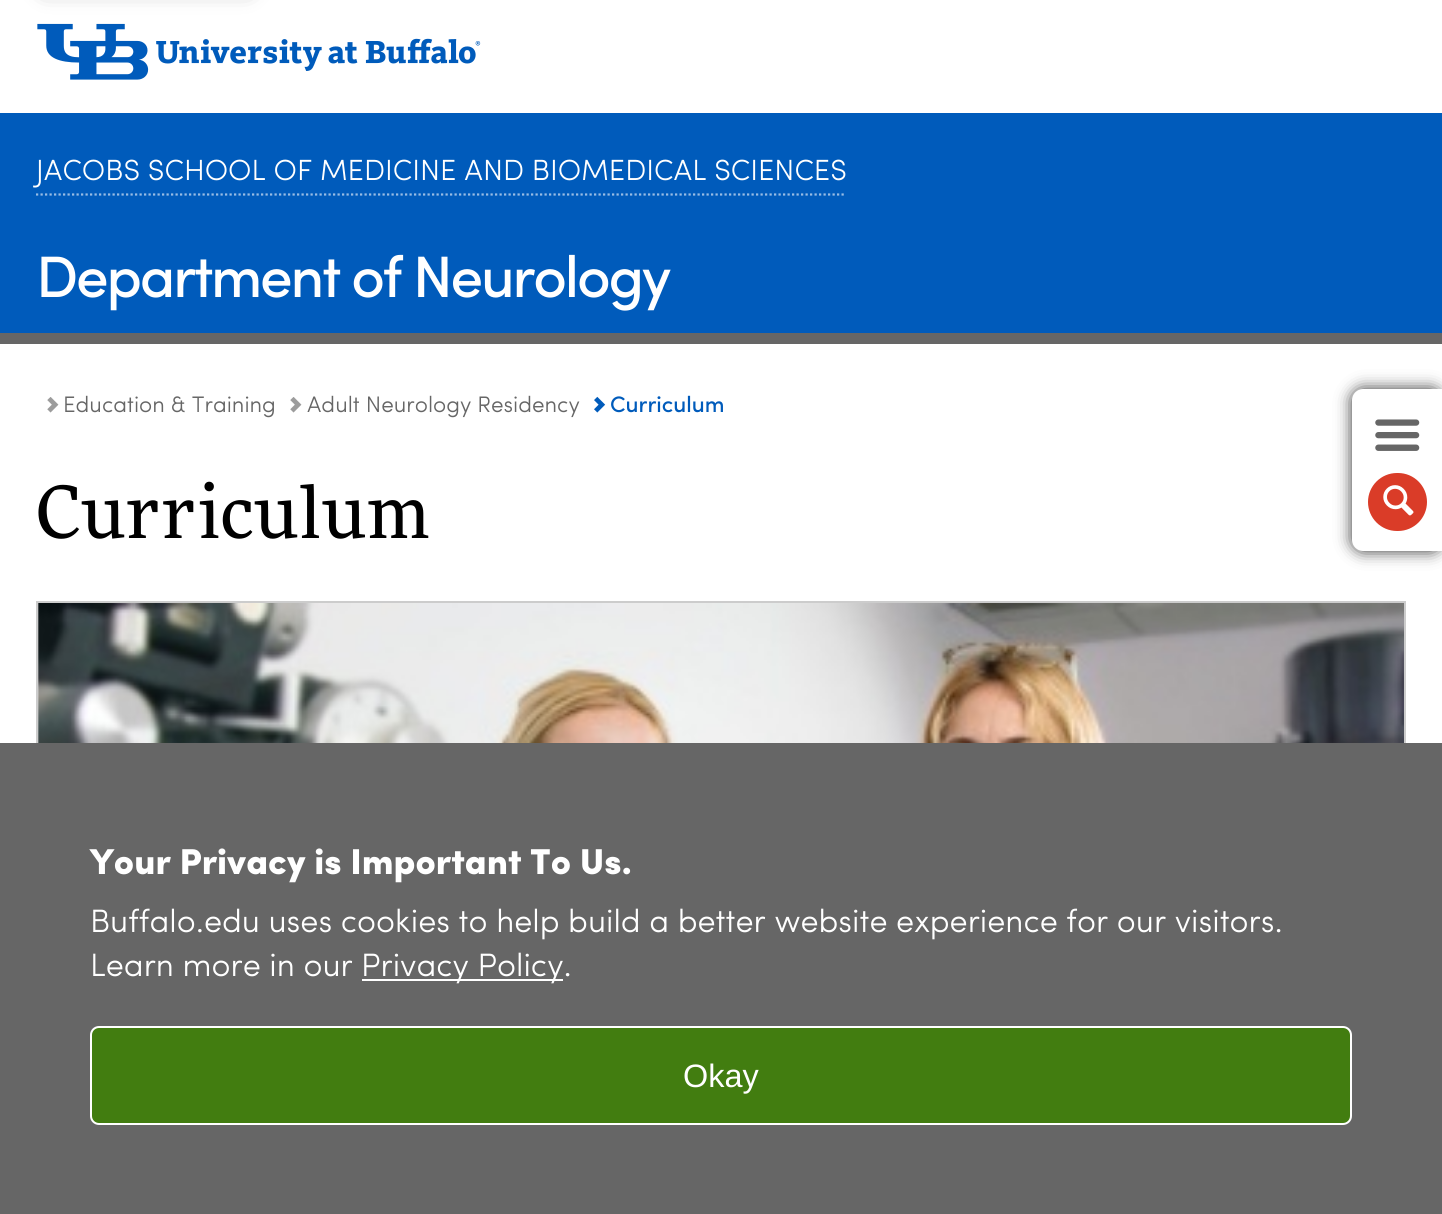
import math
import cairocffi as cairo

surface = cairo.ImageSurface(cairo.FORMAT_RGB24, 1442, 1214)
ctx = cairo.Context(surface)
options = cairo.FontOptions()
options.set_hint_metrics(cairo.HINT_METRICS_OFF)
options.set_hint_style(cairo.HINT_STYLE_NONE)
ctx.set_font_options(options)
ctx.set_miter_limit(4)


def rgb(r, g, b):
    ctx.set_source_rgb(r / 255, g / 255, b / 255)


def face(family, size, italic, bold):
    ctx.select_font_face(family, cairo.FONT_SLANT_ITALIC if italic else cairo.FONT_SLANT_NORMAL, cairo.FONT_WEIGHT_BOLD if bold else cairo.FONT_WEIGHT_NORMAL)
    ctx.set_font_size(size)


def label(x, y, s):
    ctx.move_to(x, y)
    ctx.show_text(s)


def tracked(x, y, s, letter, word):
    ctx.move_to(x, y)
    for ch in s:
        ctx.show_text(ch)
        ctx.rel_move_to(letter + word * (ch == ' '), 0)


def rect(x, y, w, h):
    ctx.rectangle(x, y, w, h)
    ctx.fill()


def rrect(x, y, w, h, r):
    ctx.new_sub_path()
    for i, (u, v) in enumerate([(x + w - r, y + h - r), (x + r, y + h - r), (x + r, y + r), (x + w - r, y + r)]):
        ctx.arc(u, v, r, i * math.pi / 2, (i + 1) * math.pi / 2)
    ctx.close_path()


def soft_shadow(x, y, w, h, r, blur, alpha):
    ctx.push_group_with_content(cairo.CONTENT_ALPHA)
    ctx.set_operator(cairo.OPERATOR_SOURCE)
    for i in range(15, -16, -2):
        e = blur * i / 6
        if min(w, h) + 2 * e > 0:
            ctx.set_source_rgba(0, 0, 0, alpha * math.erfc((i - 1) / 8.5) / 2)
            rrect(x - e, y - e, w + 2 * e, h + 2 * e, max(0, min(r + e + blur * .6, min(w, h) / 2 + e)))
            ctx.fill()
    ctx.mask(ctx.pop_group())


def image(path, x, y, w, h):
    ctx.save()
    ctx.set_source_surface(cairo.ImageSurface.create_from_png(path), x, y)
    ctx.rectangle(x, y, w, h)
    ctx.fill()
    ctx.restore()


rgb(255, 255, 255)
ctx.paint()
rgb(0, 0, 0)
soft_shadow(45, -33, 203, 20, 0, 11, 0.5)
image('image0.png', 37, 23, 444, 57)
rgb(0, 91, 187)
rect(0, 113, 1442, 220)
ctx.new_path()
ctx.move_to(36, 194.5)
ctx.line_to(846, 194.5)
rgb(153, 189, 228)
ctx.set_line_width(2.2)
ctx.set_dash([2.25, 2.25])
ctx.stroke()
face('Sofia', 29.25, 0, 0)
rgb(255, 255, 255)
label(36, 180, 'JACOBS SCHOOL OF MEDICINE AND BIOMEDICAL SCIENCES')
face('Sofia Medium', 58.5, 0, 0)
tracked(36, 297, 'Department of Neurology', -2.25, 0)
rgb(102, 102, 102)
rect(0, 333, 1442, 11)
rgb(51, 51, 51)
soft_shadow(1352, 389, 90, 162, 11, 8, 1)
rgb(255, 255, 255)
ctx.new_path()
ctx.move_to(1363, 389)
ctx.line_to(1442, 389)
ctx.line_to(1442, 551)
ctx.line_to(1363, 551)
ctx.curve_to(1357, 551, 1352, 546, 1352, 540)
ctx.line_to(1352, 400)
ctx.curve_to(1352, 394, 1357, 389, 1363, 389)
ctx.close_path()
ctx.fill()
image('image1.png', 1375, 419, 45, 32)
rgb(218, 60, 40)
rrect(1368, 473, 59, 58, 29)
ctx.fill()
image('image2.png', 1383, 485, 31, 31)
image('image3.png', 47, 397, 12, 16)
face('Sofia', 22.5, 0, 0)
rgb(102, 102, 102)
label(63, 412, 'Education & Training')
image('image3.png', 290, 397, 12, 16)
label(307, 412, 'Adult Neurology Residency')
image('image4.png', 594, 396, 12, 17)
face('Sofia Medium', 22.5, 0, 0)
rgb(0, 91, 187)
label(610, 412, 'Curriculum')
face('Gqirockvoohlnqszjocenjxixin', 72, 0, 0)
rgb(0, 0, 0)
label(36, 538, 'Curriculum')
ctx.rectangle(37, 602, 1368, 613)
rgb(204, 204, 204)
ctx.set_line_width(2)
ctx.set_dash([])
ctx.stroke()
image('image5.png', 38, 603, 1366, 140)
rgb(102, 102, 102)
rect(0, 743, 1442, 471)
face('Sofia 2', 36, 0, 0)
rgb(255, 255, 255)
label(90, 874, 'Your Privacy is Important To Us.')
face('Sofia', 32.4, 0, 0)
label(90, 932, 'Buffalo.edu uses cookies to help build a better website experience for our visitors.')
label(90, 976, 'Learn more in our')
rect(362, 979, 201, 2)
label(361, 976, 'Privacy Policy.')
rgb(66, 125, 16)
rrect(91, 1027, 1260, 97, 8)
ctx.fill_preserve()
rgb(255, 255, 255)
ctx.stroke()
face('Liberation Sans', 32.4, 0, 0)
label(683, 1087, 'Okay')
surface.write_to_png('render.png')
